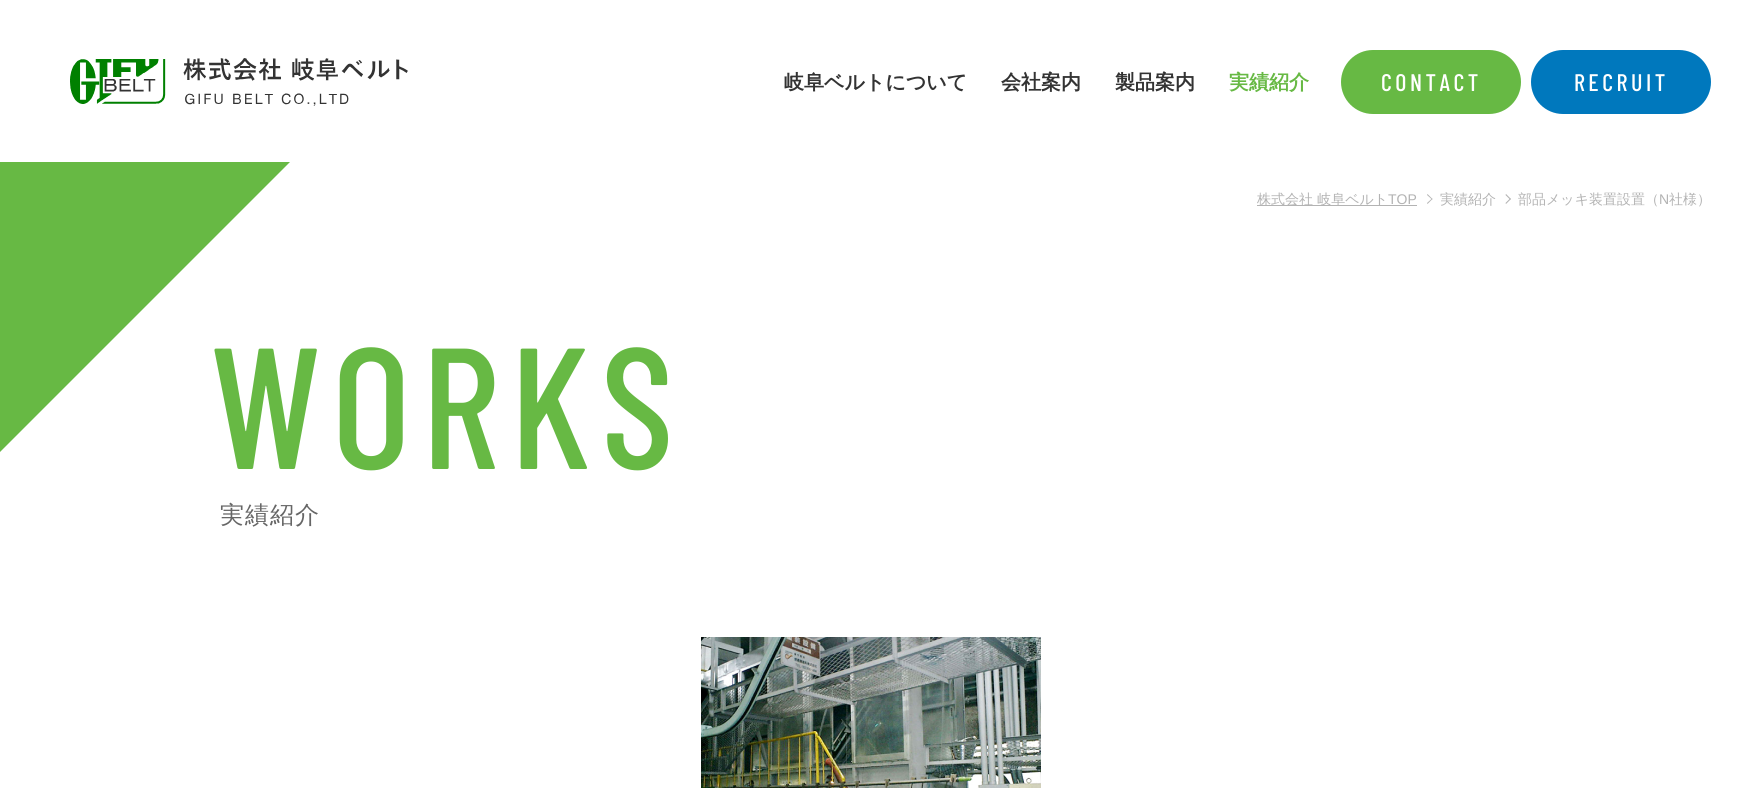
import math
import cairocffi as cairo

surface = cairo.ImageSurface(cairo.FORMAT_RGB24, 1741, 788)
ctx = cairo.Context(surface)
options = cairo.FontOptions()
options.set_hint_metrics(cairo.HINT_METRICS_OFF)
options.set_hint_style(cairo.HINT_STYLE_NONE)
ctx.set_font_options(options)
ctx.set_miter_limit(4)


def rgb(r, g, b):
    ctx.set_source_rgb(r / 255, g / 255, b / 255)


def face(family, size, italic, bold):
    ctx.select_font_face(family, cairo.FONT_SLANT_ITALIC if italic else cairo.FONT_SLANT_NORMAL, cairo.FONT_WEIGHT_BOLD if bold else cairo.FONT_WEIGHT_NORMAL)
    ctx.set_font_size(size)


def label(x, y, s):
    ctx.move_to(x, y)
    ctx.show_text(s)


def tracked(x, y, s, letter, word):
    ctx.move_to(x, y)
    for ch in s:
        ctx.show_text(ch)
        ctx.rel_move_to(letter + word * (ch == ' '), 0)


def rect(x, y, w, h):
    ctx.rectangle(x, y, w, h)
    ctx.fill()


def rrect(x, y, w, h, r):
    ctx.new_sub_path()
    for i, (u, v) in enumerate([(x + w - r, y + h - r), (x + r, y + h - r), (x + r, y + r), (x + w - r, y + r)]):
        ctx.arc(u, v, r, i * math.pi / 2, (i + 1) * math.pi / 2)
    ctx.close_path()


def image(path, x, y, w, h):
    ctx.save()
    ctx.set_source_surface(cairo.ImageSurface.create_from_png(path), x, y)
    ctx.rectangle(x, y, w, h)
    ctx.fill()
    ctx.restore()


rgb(255, 255, 255)
ctx.paint()
image('image0.png', 70, 58, 338, 48)
face('WenQuanYi Zen Hei', 20, 0, 1)
rgb(51, 51, 51)
label(784, 89, '岐阜ベルトについて')
label(1001, 89, '会社案内')
label(1115, 89, '製品案内')
rgb(103, 185, 68)
label(1229, 89, '実績紹介')
rrect(1341, 50, 180, 64, 32)
ctx.fill()
face('Barlow Condensed Medium', 24, 0, 0)
rgb(255, 255, 255)
tracked(1381, 91, 'CONTACT', 3.5, 0)
rgb(0, 120, 189)
rrect(1531, 50, 180, 64, 32)
ctx.fill()
rgb(255, 255, 255)
tracked(1574, 91, 'RECRUIT', 3.5, 0)
rgb(103, 185, 68)
ctx.new_path()
ctx.move_to(0, 162)
ctx.line_to(290, 162)
ctx.line_to(0, 452)
ctx.close_path()
ctx.fill()
rgb(179, 179, 179)
rect(1257, 205, 160, 1)
face('WenQuanYi Zen Hei Medium', 14, 0, 0)
label(1257, 204, '株式会社 岐阜ベルト')
face('Liberation Sans', 14, 0, 0)
label(1388, 204, 'TOP')
ctx.new_path()
ctx.move_to(1427.5, 194)
ctx.line_to(1432.5, 199)
ctx.line_to(1432, 199.5)
ctx.line_to(1427, 195)
ctx.close_path()
ctx.fill()
ctx.new_path()
ctx.move_to(1432, 198.5)
ctx.line_to(1432.5, 199)
ctx.line_to(1427.5, 204)
ctx.line_to(1427, 203)
ctx.close_path()
ctx.fill()
face('WenQuanYi Zen Hei Medium', 14, 0, 0)
label(1440, 204, '実績紹介')
ctx.new_path()
ctx.move_to(1506, 194)
ctx.line_to(1511, 199)
ctx.line_to(1510, 199.5)
ctx.line_to(1505.5, 195)
ctx.close_path()
ctx.fill()
ctx.new_path()
ctx.move_to(1510, 198.5)
ctx.line_to(1511, 199)
ctx.line_to(1506, 204)
ctx.line_to(1505.5, 203)
ctx.close_path()
ctx.fill()
label(1518, 204, '部品メッキ装置設置（')
face('Liberation Sans', 14, 0, 0)
label(1659, 204, 'N')
face('WenQuanYi Zen Hei Medium', 14, 0, 0)
label(1669, 204, '社様）')
face('Barlow Condensed Medium', 172, 0, 0)
rgb(103, 185, 68)
tracked(210, 469, 'WORKS', 10.5, 0)
face('WenQuanYi Zen Hei Medium', 24, 0, 0)
rgb(102, 102, 102)
tracked(220, 523, '実績紹介', 1, 0)
image('image1.png', 701, 637, 340, 151)
surface.write_to_png('render.png')
